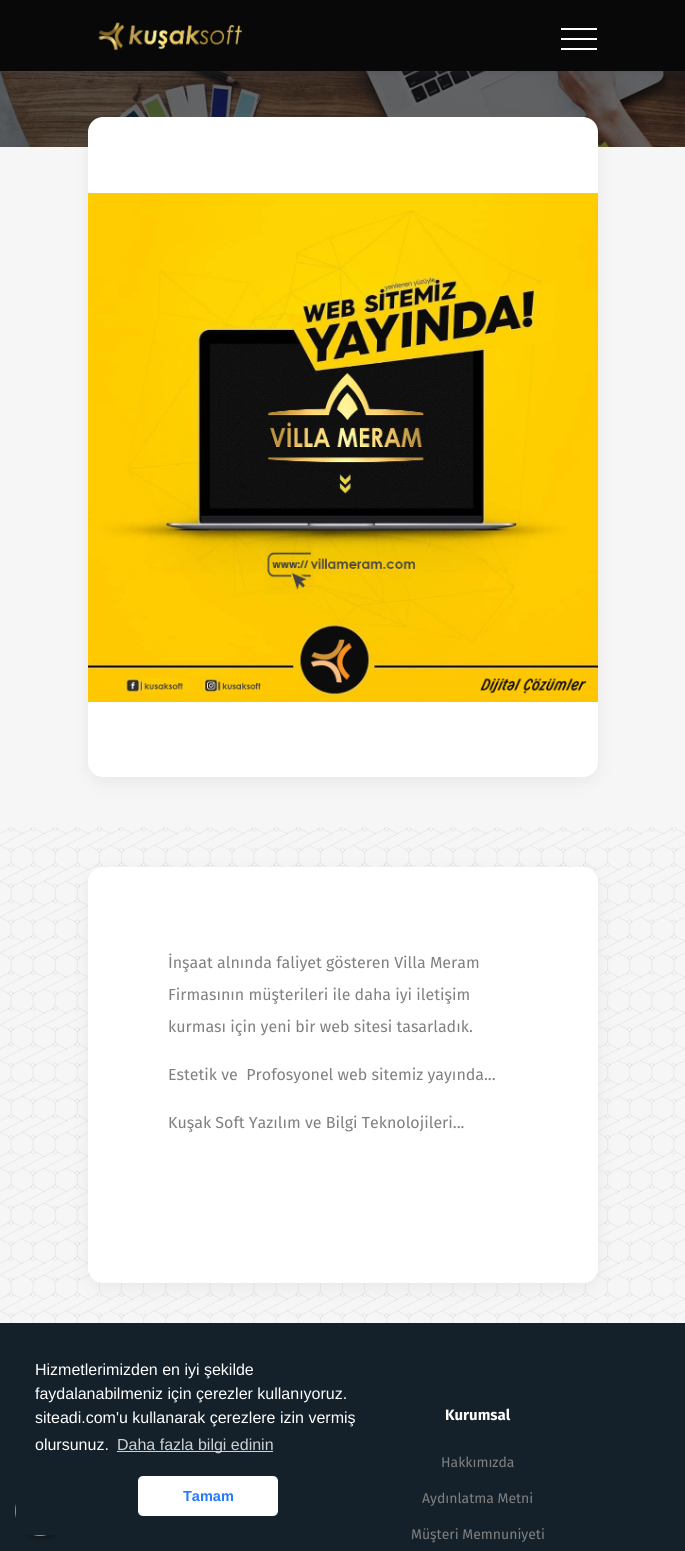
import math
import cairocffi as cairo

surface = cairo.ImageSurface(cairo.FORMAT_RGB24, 685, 1551)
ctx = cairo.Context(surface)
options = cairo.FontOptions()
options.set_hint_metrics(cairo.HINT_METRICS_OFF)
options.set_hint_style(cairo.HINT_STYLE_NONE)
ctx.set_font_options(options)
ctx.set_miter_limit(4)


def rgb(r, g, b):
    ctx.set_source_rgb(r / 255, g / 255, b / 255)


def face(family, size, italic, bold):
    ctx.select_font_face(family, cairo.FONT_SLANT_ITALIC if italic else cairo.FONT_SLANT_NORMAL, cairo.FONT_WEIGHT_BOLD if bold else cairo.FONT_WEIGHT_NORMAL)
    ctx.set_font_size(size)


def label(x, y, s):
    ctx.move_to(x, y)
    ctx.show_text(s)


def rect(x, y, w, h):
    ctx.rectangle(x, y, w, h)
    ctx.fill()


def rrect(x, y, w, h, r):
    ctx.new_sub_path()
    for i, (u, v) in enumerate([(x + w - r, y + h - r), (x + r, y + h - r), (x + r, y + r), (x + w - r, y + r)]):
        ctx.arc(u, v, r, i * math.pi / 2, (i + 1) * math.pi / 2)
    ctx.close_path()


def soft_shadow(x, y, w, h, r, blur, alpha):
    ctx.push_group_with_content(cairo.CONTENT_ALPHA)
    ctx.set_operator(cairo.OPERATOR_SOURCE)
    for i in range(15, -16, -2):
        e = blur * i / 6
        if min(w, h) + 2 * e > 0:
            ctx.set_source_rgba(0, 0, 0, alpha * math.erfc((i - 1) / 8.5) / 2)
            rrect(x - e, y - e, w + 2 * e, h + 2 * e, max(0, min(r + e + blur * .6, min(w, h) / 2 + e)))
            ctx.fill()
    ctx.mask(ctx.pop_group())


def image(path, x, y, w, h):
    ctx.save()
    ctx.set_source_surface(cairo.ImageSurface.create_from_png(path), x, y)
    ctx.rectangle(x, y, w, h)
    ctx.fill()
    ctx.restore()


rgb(246, 246, 246)
ctx.paint()
image('image1.png', 0, 71, 685, 76)
rgb(62, 62, 79)
soft_shadow(0, 2, 685, 71, 0, 4, 0.23)
rgb(8, 8, 8)
rect(0, 0, 685, 71)
image('image0.png', 98, 22, 144, 29)
rgb(255, 255, 255)
rect(561, 38, 36, 2)
rect(561, 28, 36, 2)
rect(561, 48, 36, 2)
rgb(110, 110, 110)
soft_shadow(88, 122, 510, 660, 15, 7.5, 0.1)
rgb(255, 255, 255)
rrect(88, 117, 510, 660, 15)
ctx.fill()
image('image2.png', 88, 193, 510, 509)
image('image3.png', 0, 827, 685, 496)
rgb(110, 110, 110)
soft_shadow(88, 872, 510, 416, 15, 7.5, 0.1)
rgb(255, 255, 255)
rrect(88, 867, 510, 416, 15)
ctx.fill()
face('Fira Sans', 16, 0, 0)
rgb(128, 128, 128)
label(168, 968, 'İnşaat alnında faliyet gösteren Villa Meram')
label(168, 1000, 'Firmasının müşterileri ile daha iyi iletişim')
label(168, 1032, 'kurması için yeni bir web sitesi tasarladık.')
label(168, 1080, 'Estetik ve  Profosyonel web sitemiz yayında...')
label(168, 1128, 'Kuşak Soft Yazılım ve Bilgi Teknolojileri...')
rgb(21, 33, 42)
rect(0, 1323, 685, 228)
rgb(0, 0, 0)
soft_shadow(17, 1488, 50, 50, 25, 3, 0.4)
rgb(77, 194, 71)
ctx.arc(40, 1511, 25, 0, 2 * math.pi)
ctx.fill()
rgb(21, 33, 42)
rrect(16, 1339, 384, 196, 5)
ctx.fill()
face('Liberation Sans', 16, 0, 0)
rgb(255, 255, 255)
label(35, 1375, 'Hizmetlerimizden en iyi şekilde')
label(35, 1399, 'faydalanabilmeniz için çerezler kullanıyoruz.')
label(35, 1423, 'siteadi.com\'u kullanarak çerezlere izin vermiş')
label(35, 1450, 'olursunuz.')
rgb(208, 211, 212)
rect(117, 1451, 156, 1)
label(117, 1450, 'Daha fazla bilgi edinin')
rgb(255, 255, 255)
rrect(138, 1476, 140, 40, 5)
ctx.fill()
face('Liberation Sans', 14.5, 0, 1)
rgb(35, 122, 252)
label(183, 1501, 'Tamam')
face('Fira Sans', 15, 0, 1)
rgb(255, 255, 255)
label(445, 1420, 'Kurumsal')
face('Fira Sans', 14, 0, 0)
rgb(128, 128, 128)
label(441, 1467, 'Hakkımızda')
label(422, 1503, 'Aydınlatma Metni')
label(411, 1539, 'Müşteri Memnuniyeti')
surface.write_to_png('render.png')
